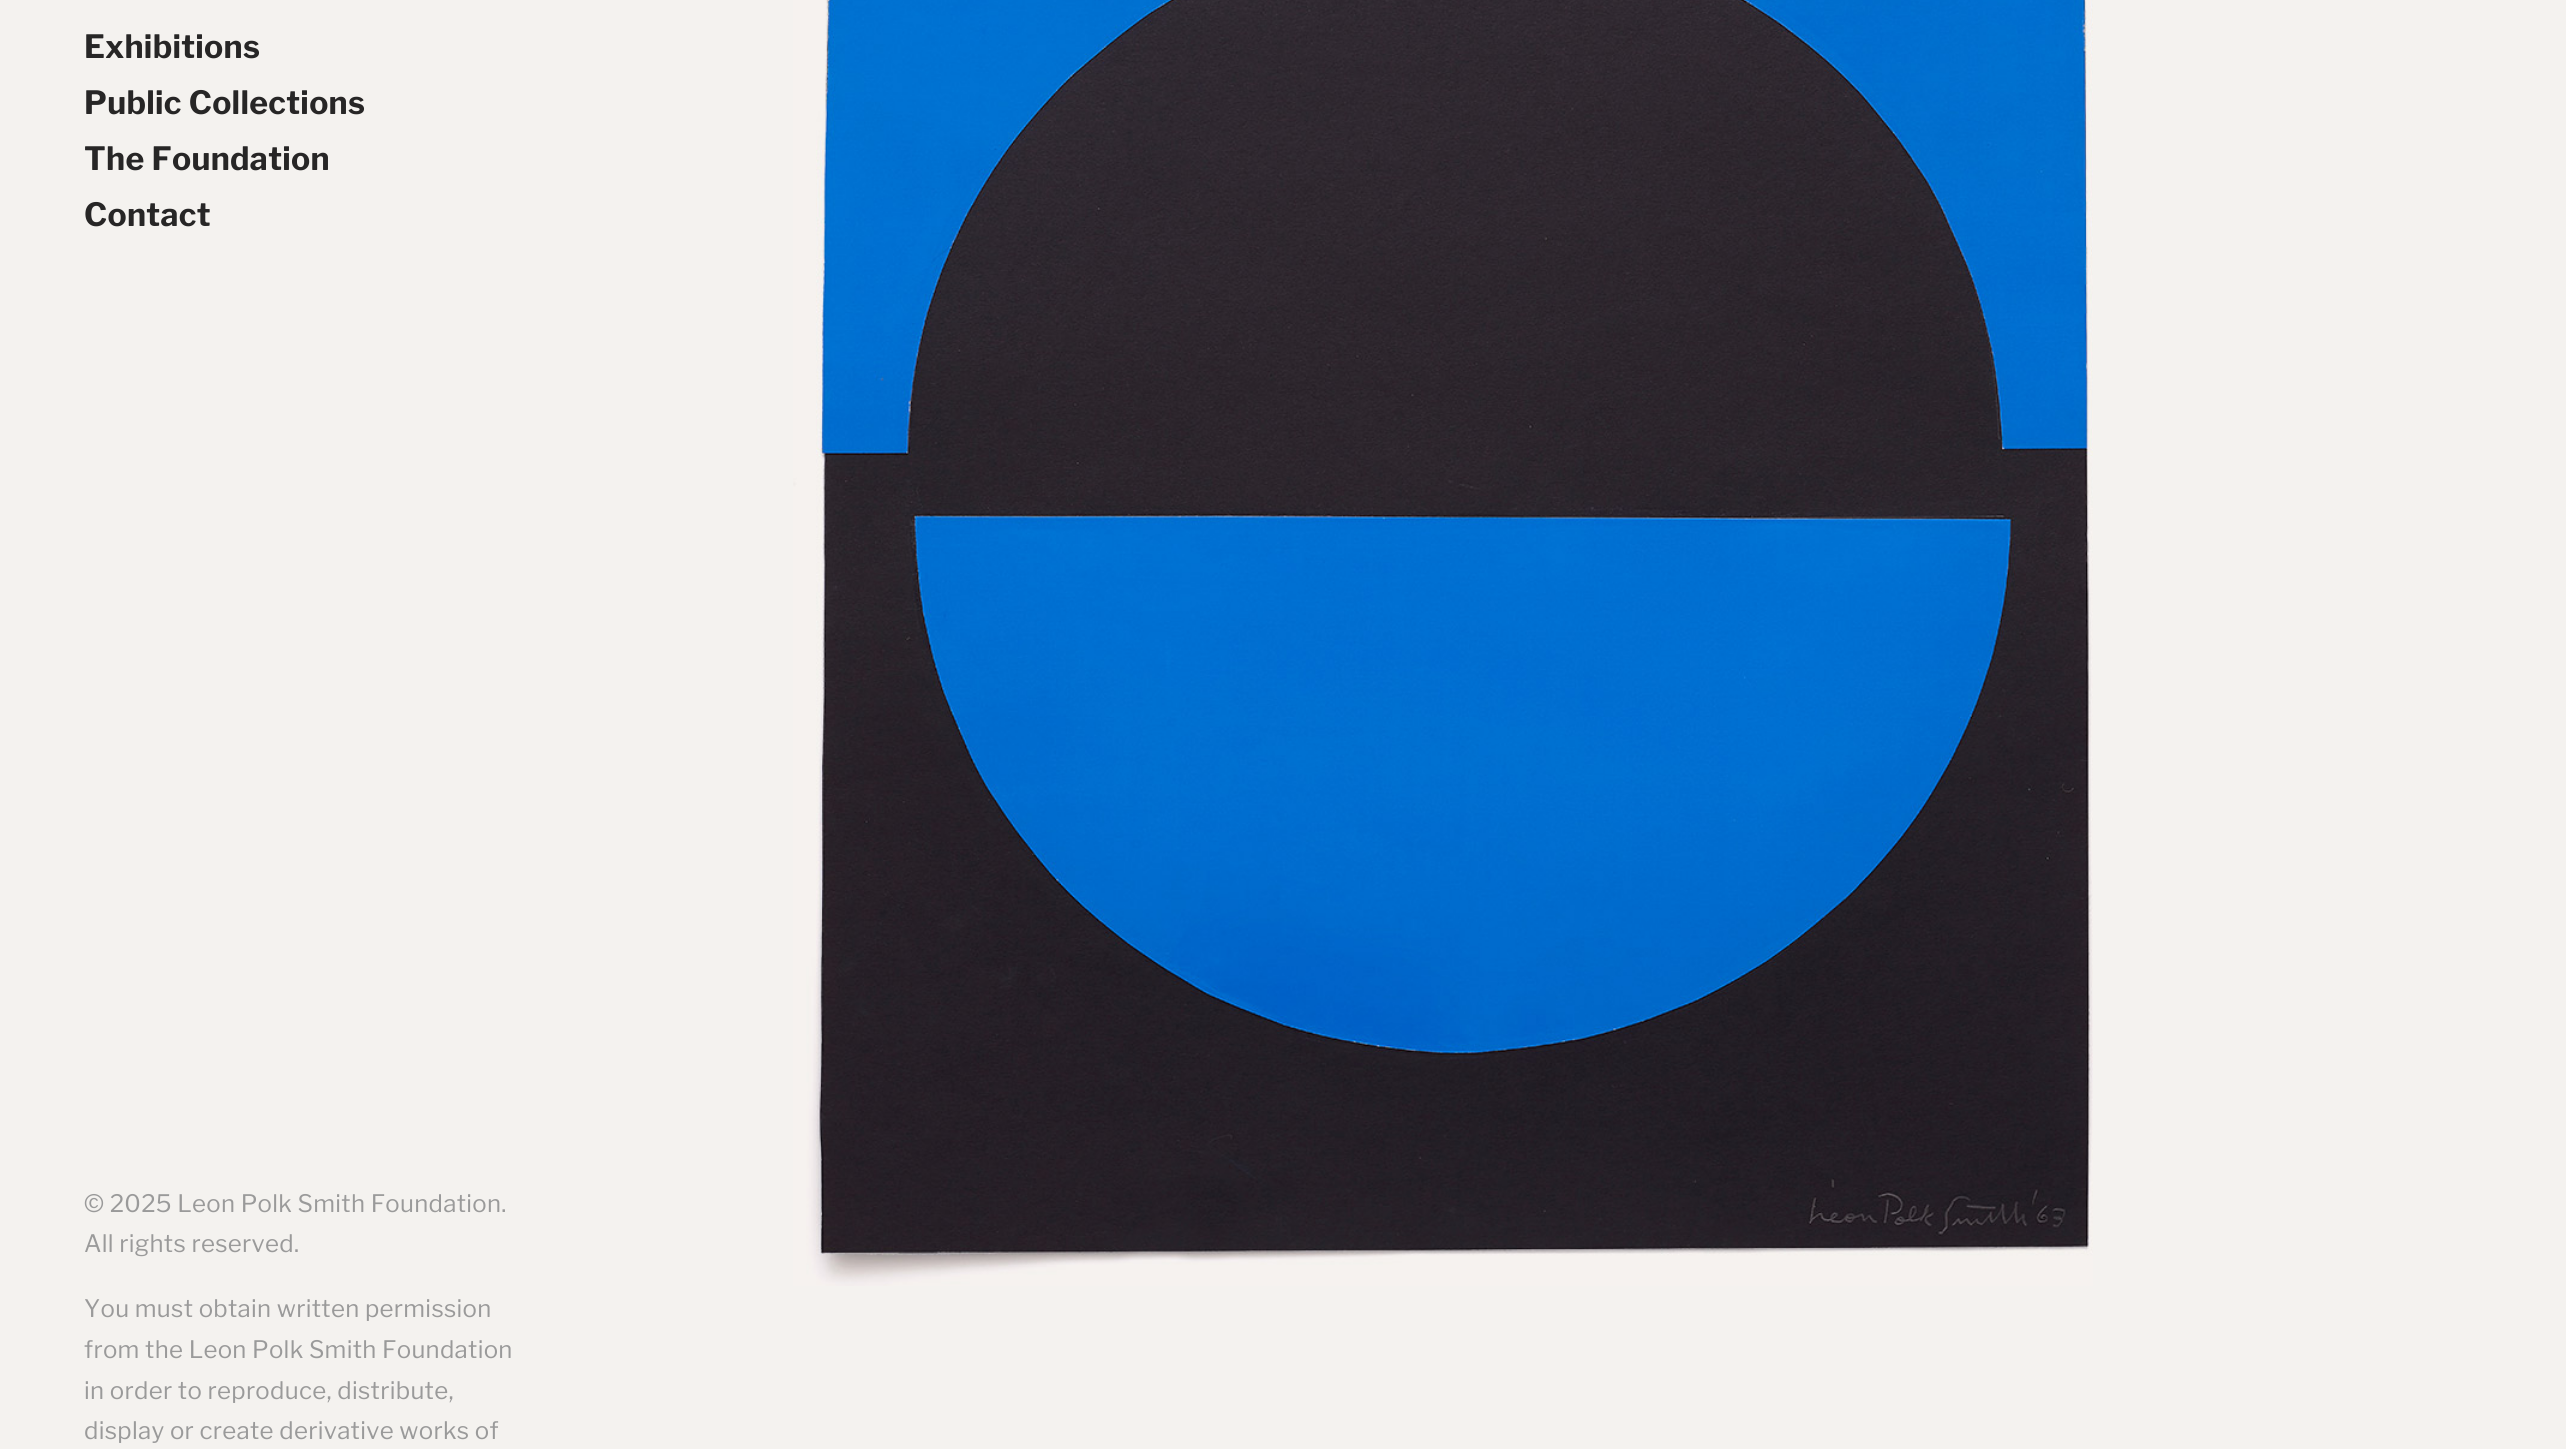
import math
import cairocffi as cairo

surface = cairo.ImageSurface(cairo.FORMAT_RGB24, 2566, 1449)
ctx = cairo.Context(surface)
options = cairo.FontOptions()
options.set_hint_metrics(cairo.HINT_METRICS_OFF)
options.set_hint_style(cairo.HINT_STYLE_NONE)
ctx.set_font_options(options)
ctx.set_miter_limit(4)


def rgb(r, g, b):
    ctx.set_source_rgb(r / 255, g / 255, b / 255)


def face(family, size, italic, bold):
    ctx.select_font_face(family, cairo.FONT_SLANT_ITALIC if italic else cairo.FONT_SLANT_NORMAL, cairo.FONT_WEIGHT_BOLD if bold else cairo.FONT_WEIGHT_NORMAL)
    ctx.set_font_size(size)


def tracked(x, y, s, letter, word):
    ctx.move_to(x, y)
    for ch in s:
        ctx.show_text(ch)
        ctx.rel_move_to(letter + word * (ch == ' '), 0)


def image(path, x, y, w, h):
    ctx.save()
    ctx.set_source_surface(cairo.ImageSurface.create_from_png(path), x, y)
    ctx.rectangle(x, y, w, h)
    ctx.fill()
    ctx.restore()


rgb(244, 242, 239)
ctx.paint()
face('Libre Franklin', 32, 0, 1)
rgb(39, 38, 38)
tracked(84, 58, 'Exhibitions', 0.3, 0)
tracked(84, 114, 'Public Collections', 0.3, 0)
tracked(84, 170, 'The Foundation', 0.3, 0)
tracked(84, 226, 'Contact', 0.3, 0)
image('image0.png', 793, 0, 1300, 1286)
face('Libre Franklin', 24, 0, 0)
rgb(154, 154, 154)
tracked(84, 1212, '© 2025 Leon Polk Smith Foundation.', 0.3, 0)
tracked(84, 1252, 'All rights reserved.', 0.3, 0)
tracked(84, 1317, 'You must obtain written permission', 0.3, 0)
tracked(84, 1358, 'from the Leon Polk Smith Foundation', 0.3, 0)
tracked(84, 1399, 'in order to reproduce, distribute,', 0.3, 0)
tracked(84, 1439, 'display or create derivative works of', 0.3, 0)
surface.write_to_png('render.png')
